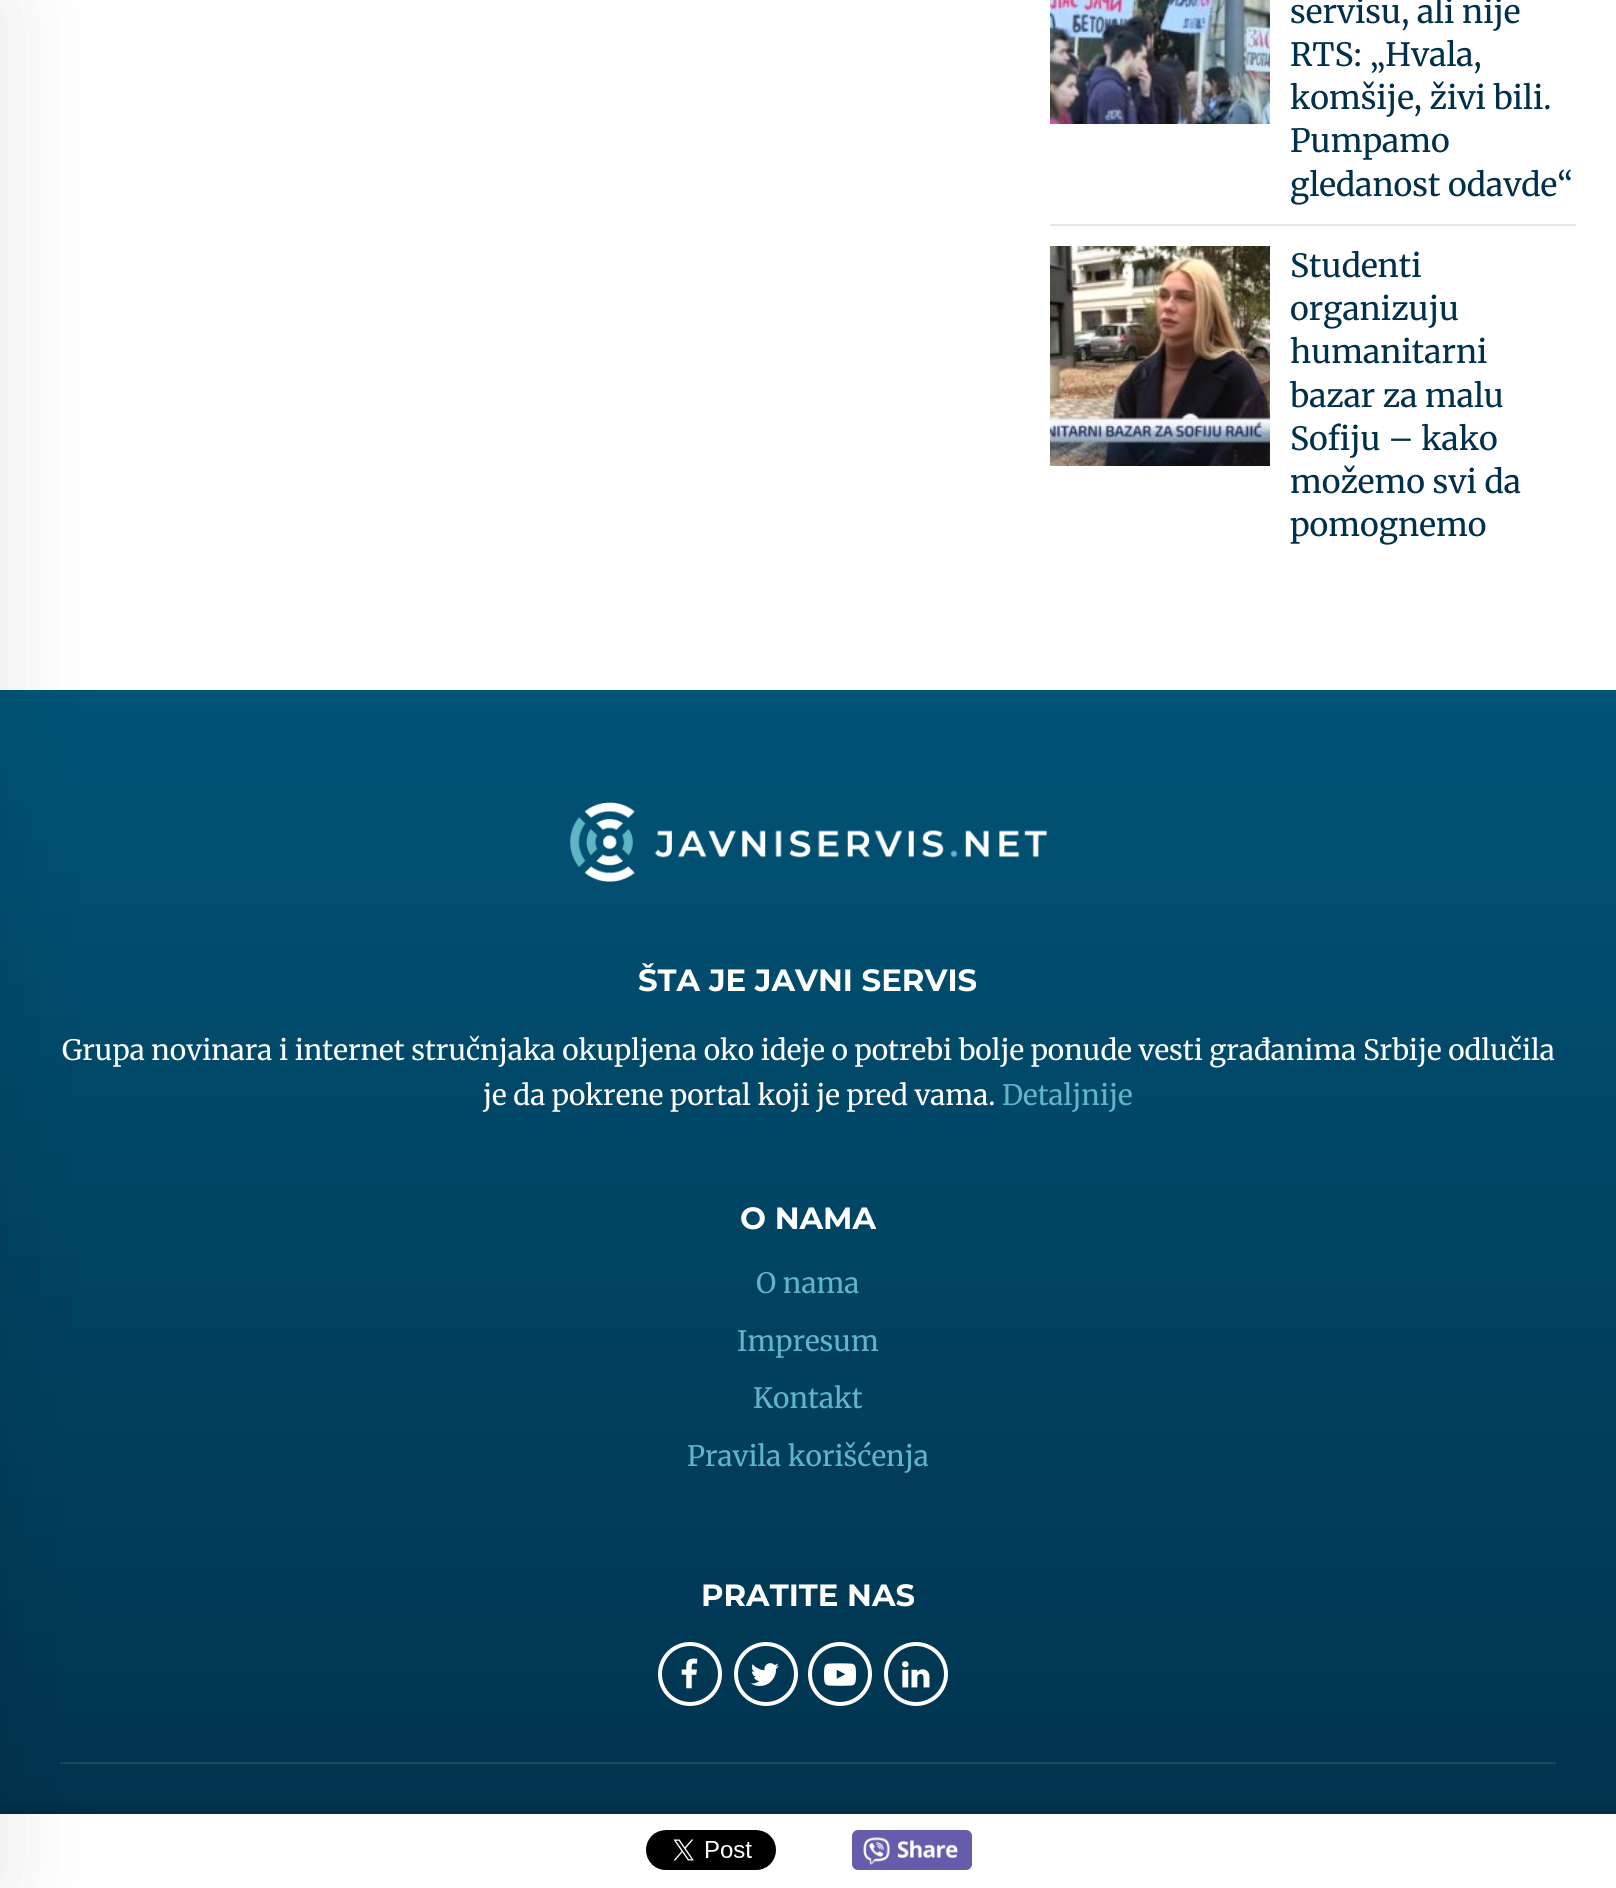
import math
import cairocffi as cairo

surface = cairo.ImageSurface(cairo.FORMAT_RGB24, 1616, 1888)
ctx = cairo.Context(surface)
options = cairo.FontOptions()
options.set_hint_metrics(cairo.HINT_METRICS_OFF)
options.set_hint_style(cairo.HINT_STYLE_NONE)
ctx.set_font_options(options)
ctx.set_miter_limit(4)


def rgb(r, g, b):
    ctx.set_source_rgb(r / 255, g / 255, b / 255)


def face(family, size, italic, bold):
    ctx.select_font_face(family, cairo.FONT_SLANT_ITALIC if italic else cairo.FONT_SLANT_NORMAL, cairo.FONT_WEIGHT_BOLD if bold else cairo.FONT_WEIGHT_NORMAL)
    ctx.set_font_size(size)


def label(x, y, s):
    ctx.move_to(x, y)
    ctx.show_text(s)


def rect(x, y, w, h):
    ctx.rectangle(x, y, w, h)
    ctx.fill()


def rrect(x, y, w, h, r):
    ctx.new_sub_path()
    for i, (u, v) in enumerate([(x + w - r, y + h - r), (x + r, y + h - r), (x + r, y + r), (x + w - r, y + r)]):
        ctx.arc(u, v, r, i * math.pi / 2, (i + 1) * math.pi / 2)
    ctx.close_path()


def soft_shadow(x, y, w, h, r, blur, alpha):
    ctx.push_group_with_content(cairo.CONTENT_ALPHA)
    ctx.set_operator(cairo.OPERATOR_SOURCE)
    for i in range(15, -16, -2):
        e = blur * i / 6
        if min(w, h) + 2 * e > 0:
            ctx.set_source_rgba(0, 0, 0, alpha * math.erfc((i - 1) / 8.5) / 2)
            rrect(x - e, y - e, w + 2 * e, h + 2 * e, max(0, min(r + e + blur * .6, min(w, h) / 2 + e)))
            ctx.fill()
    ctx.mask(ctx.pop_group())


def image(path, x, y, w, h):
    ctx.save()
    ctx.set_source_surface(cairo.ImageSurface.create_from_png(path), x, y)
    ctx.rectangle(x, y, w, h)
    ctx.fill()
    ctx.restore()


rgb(255, 255, 255)
ctx.paint()
gradient = cairo.LinearGradient(808, 690, 808, 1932)
gradient.add_color_stop_rgba(0, 0.004, 0.329, 0.467, 1)
gradient.add_color_stop_rgba(1, 0.004, 0.188, 0.29, 1)
ctx.set_source(gradient)
rect(0, 690, 1616, 1124)
rgb(26, 73, 98)
rect(60, 1762, 1496, 2)
rgb(0, 0, 0)
soft_shadow(0, 1814, 1616, 74, 0, 10, 0.3)
rgb(255, 255, 255)
rect(0, 1814, 1616, 74)
rgb(0, 0, 0)
soft_shadow(-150, 0, 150, 1888, 0, 50, 0.1)
rgb(230, 230, 230)
rect(1050, 224, 526, 2)
image('image0.png', 1050, 0, 220, 124)
face('Merriweather', 32, 0, 0)
rgb(1, 48, 74)
label(1290, 23, 'servisu, ali nije')
label(1290, 66, 'RTS: „Hvala,')
label(1290, 109, 'komšije, živi bili.')
label(1290, 152, 'Pumpamo')
label(1290, 196, 'gledanost odavde“')
image('image1.png', 1050, 246, 220, 220)
label(1290, 277, 'Studenti')
label(1290, 320, 'organizuju')
label(1290, 363, 'humanitarni')
label(1290, 407, 'bazar za malu')
label(1290, 450, 'Sofiju – kako')
label(1290, 493, 'možemo svi da')
label(1290, 536, 'pomognemo')
image('image2.png', 569, 802, 479, 80)
face('Montserrat', 30.75, 0, 1)
rgb(255, 255, 255)
label(638, 991, 'ŠTA JE JAVNI SERVIS')
face('Merriweather', 28, 0, 0)
label(62, 1060, 'Grupa novinara i internet stručnjaka okupljena oko ideje o potrebi bolje ponude vesti građanima Srbije odlučila')
label(483, 1105, 'je da pokrene portal koji je pred vama.')
rgb(96, 182, 198)
label(1002, 1105, 'Detaljnije')
face('Montserrat', 30.75, 0, 1)
rgb(255, 255, 255)
label(740, 1229, 'O NAMA')
face('Merriweather', 28, 0, 0)
rgb(96, 182, 198)
label(756, 1293, 'O nama')
label(737, 1351, 'Impresum')
label(753, 1408, 'Kontakt')
label(687, 1466, 'Pravila korišćenja')
face('Montserrat', 30.75, 0, 1)
rgb(255, 255, 255)
label(701, 1606, 'PRATITE NAS')
ctx.new_path()
ctx.arc(690, 1674, 30, 0, 2 * math.pi)
ctx.set_line_width(4)
ctx.stroke()
image('image3.png', 681, 1658, 17, 31)
ctx.arc(766, 1674, 30, 0, 2 * math.pi)
ctx.stroke()
image('image4.png', 751, 1663, 28, 23)
ctx.arc(840, 1674, 30, 0, 2 * math.pi)
ctx.stroke()
image('image5.png', 824, 1663, 32, 23)
ctx.arc(916, 1674, 30, 0, 2 * math.pi)
ctx.stroke()
image('image6.png', 902, 1661, 28, 27)
image('image7.png', 646, 1830, 130, 40)
image('image8.png', 852, 1830, 120, 40)
surface.write_to_png('render.png')
